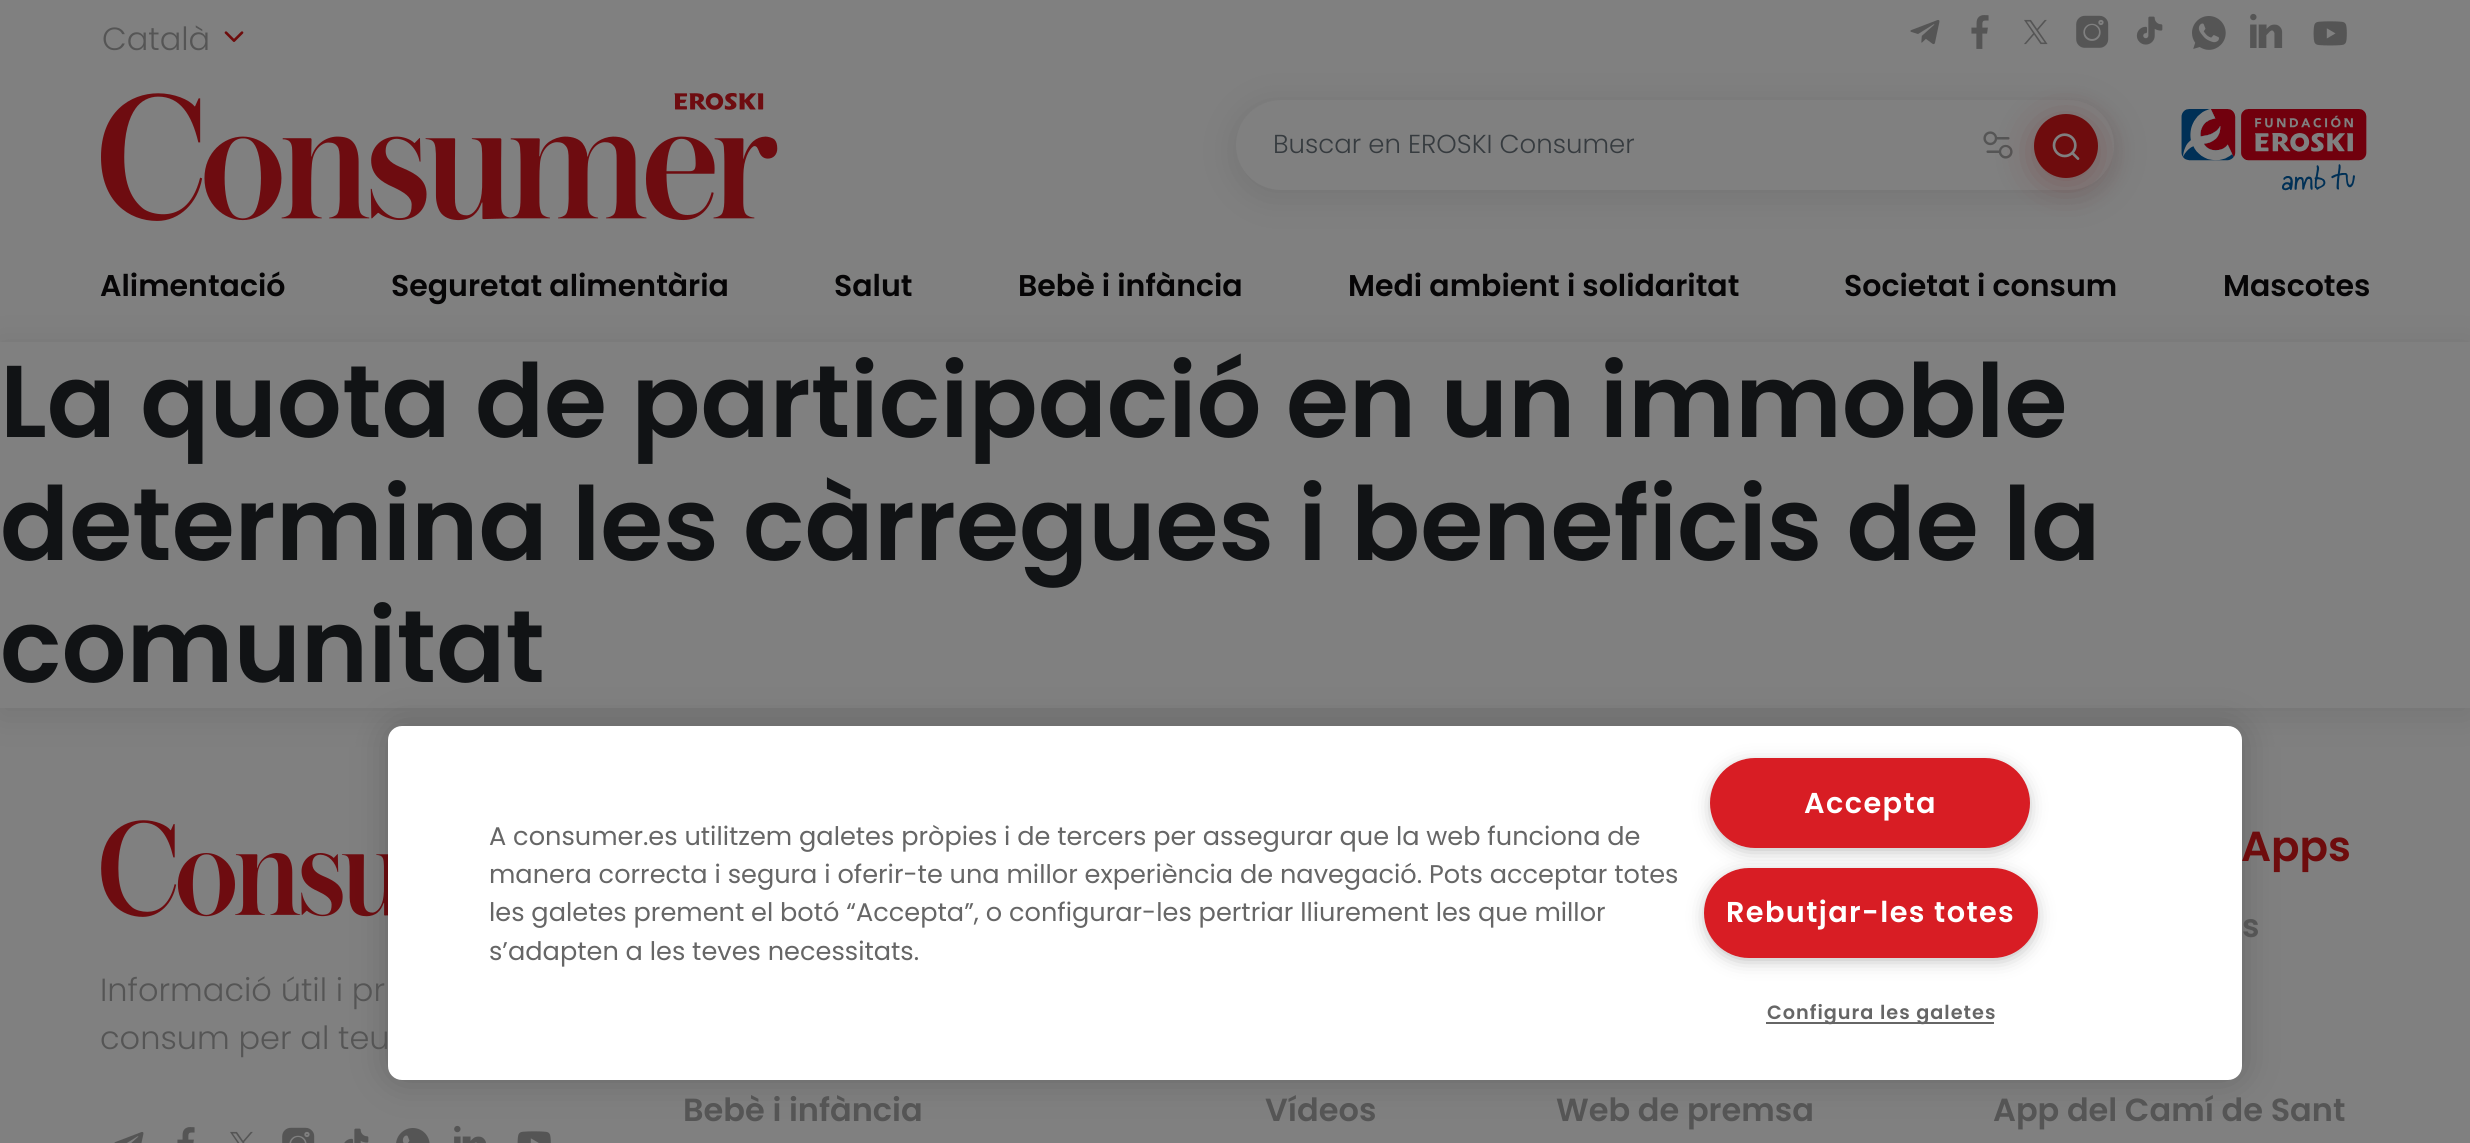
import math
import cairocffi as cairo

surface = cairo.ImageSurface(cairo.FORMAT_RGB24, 2470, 1143)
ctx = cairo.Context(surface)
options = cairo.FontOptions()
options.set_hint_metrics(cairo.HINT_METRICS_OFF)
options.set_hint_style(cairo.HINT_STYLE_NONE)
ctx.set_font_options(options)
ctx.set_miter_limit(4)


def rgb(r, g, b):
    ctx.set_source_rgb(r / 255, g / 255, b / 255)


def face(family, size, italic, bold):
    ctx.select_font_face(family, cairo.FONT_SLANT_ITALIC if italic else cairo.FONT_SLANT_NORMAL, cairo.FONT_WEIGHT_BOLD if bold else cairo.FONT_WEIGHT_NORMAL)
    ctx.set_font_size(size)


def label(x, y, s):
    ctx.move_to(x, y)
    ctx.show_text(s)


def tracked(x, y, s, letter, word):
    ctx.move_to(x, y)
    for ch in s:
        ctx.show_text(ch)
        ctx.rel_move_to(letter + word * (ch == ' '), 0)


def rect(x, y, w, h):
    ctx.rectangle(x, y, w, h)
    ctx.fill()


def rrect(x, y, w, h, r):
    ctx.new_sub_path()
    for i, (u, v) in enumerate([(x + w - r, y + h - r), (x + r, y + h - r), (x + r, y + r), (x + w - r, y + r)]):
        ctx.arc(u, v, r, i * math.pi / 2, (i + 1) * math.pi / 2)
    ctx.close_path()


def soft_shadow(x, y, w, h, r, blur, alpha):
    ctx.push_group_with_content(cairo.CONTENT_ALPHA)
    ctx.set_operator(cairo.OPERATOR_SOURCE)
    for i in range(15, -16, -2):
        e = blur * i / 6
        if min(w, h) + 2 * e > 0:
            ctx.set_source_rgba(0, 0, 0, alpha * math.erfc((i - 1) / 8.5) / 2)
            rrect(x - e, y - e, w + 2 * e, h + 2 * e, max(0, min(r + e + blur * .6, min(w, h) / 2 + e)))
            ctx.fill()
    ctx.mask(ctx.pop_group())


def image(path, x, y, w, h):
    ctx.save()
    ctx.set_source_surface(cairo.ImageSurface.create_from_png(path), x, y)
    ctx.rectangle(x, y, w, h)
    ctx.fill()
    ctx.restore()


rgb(128, 128, 128)
ctx.paint()
face('Poppins Light', 32, 0, 0)
rgb(85, 85, 85)
label(102, 50, 'Català')
image('image0.png', 224, 31, 20, 11)
image('image1.png', 1910, 20, 30, 25)
image('image2.png', 1971, 15, 18, 34)
image('image3.png', 2024, 19, 24, 26)
image('image4.png', 2076, 15, 33, 33)
image('image5.png', 2136, 16, 27, 29)
image('image6.png', 2192, 16, 34, 34)
image('image7.png', 2250, 13, 33, 35)
image('image8.png', 2313, 21, 34, 25)
image('image9.png', 101, 93, 677, 128)
rgb(6, 5, 6)
soft_shadow(1236, 106, 878, 90, 45, 18, 0.1)
rgb(128, 128, 128)
rrect(1236, 100, 878, 90, 45)
ctx.fill()
image('image11.png', 1983, 131, 30, 28)
rgb(110, 12, 13)
soft_shadow(2034, 120, 64, 64, 32, 18, 0.3)
rgb(110, 12, 13)
ctx.arc(2066, 146, 32, 0, 2 * math.pi)
ctx.fill()
image('image10.png', 2052, 133, 28, 27)
face('Poppins Light', 26, 0, 0)
rgb(54, 59, 63)
label(1273, 153, 'Buscar en EROSKI Consumer')
image('image12.png', 2181, 109, 186, 82)
face('Poppins SemiBold', 30, 0, 0)
rgb(6, 5, 6)
label(100, 296, 'Alimentació')
label(391, 296, 'Seguretat alimentària')
label(834, 296, 'Salut')
label(1018, 296, 'Bebè i infància')
label(1348, 296, 'Medi ambient i solidaritat')
label(1844, 296, 'Societat i consum')
label(2223, 296, 'Mascotes')
rgb(6, 5, 6)
soft_shadow(0, 348, 2470, 366, 0, 18, 0.1)
rgb(128, 128, 128)
rect(0, 342, 2470, 366)
face('Poppins SemiBold', 102, 0, 0)
rgb(17, 19, 21)
label(0, 437, 'La quota de participació en un immoble')
label(0, 560, 'determina les càrregues i beneficis de la')
label(0, 682, 'comunitat')
image('image13.png', 101, 820, 287, 97)
image('image18.png', 344, 1128, 25, 15)
image('image19.png', 396, 1128, 34, 15)
image('image20.png', 454, 1125, 32, 18)
image('image21.png', 517, 1131, 34, 12)
rgb(0, 0, 0)
soft_shadow(388, 726, 1854, 354, 14, 18, 0.2)
face('Poppins SemiBold', 42, 0, 0)
rgb(110, 12, 13)
label(2241, 861, 'Apps')
rgb(255, 255, 255)
rrect(388, 726, 1854, 354, 14)
ctx.fill()
face('Poppins', 25.6, 0, 0)
rgb(102, 102, 102)
label(489, 845, 'A consumer.es utilitzem galetes pròpies i de tercers per assegurar que la web funciona de')
label(489, 883, 'manera correcta i segura i oferir-te una millor experiència de navegació. Pots acceptar totes')
label(489, 921, 'les galetes prement el botó “Accepta”, o configurar-les pertriar lliurement les que millor')
label(489, 960, 's’adapten a les teves necessitats.')
rgb(153, 153, 153)
soft_shadow(1716, 768, 308, 78, 39, 10, 1)
rgb(216, 29, 36)
rrect(1711, 759, 318, 88, 44)
ctx.fill_preserve()
ctx.stroke()
face('Poppins SemiBold', 28.75, 0, 0)
rgb(255, 255, 255)
tracked(1804, 813, 'Accepta', 1.4, 0)
rgb(153, 153, 153)
soft_shadow(1710, 878, 322, 78, 39, 10, 1)
rgb(216, 29, 36)
rrect(1705, 869, 332, 88, 44)
ctx.fill_preserve()
ctx.stroke()
rgb(255, 255, 255)
tracked(1726, 922, 'Rebutjar-les totes', 1.4, 0)
rgb(102, 102, 102)
rect(1766, 1022, 228, 2)
face('Poppins SemiBold', 19.25, 0, 0)
tracked(1767, 1019, 'Configura les galetes', 1, 0)
face('Poppins Light', 32, 0, 0)
rgb(85, 85, 85)
label(100, 1001, 'Informació útil i pr')
label(100, 1049, 'consum per al teu')
image('image14.png', 114, 1132, 30, 11)
image('image15.png', 177, 1127, 18, 16)
image('image16.png', 230, 1131, 23, 12)
image('image17.png', 282, 1127, 33, 16)
face('Poppins SemiBold', 32, 0, 0)
label(683, 1121, 'Bebè i infància')
label(1265, 1121, 'Vídeos')
label(1556, 1121, 'Web de premsa')
label(2242, 937, 's')
label(1993, 1121, 'App del Camí de Sant')
surface.write_to_png('render.png')
